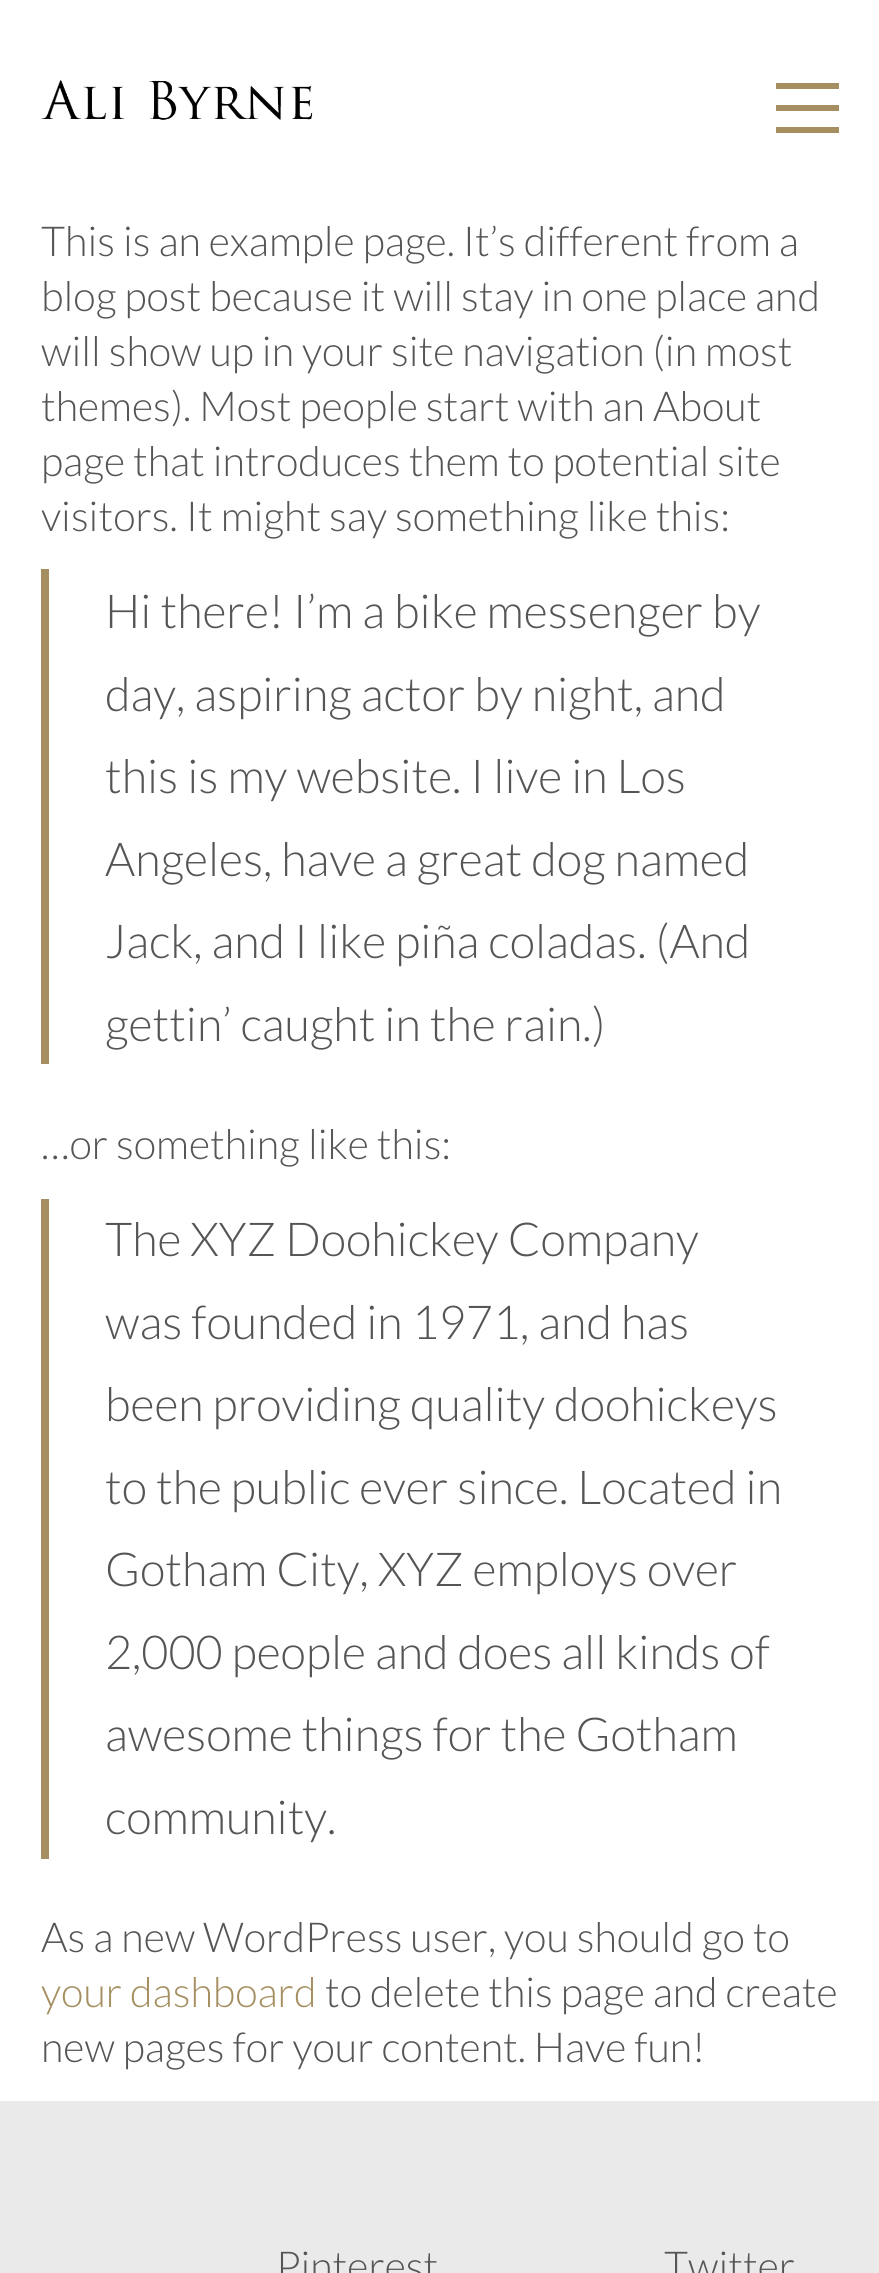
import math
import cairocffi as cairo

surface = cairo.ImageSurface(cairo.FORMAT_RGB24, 879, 2273)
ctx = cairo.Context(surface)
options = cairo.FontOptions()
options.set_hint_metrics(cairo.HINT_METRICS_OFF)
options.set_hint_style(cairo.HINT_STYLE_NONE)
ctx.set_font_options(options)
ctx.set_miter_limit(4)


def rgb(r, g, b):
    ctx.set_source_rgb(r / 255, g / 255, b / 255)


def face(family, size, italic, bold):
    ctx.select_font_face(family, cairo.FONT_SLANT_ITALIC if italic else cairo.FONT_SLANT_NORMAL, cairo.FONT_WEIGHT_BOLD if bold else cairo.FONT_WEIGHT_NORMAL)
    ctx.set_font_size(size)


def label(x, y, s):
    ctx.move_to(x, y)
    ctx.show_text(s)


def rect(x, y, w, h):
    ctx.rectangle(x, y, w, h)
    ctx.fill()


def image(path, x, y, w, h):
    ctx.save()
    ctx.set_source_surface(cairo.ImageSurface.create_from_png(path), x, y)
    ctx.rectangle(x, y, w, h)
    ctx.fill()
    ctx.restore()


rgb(255, 255, 255)
ctx.paint()
image('image0.png', 41, 80, 272, 40)
rgb(165, 143, 96)
rect(776, 83, 63, 6)
rect(776, 105, 63, 6)
rect(776, 127, 63, 6)
face('Lato Light', 41.25, 0, 0)
rgb(85, 85, 85)
label(41, 256, 'This is an example page. It’s different from a')
label(41, 311, 'blog post because it will stay in one place and')
label(41, 366, 'will show up in your site navigation (in most')
label(41, 421, 'themes). Most people start with an About')
label(41, 476, 'page that introduces them to potential site')
label(41, 531, 'visitors. It might say something like this:')
rgb(165, 143, 96)
rect(41, 569, 8, 495)
face('Lato Light', 46.75, 0, 0)
rgb(85, 85, 85)
label(105, 628, 'Hi there! I’m a bike messenger by')
label(105, 711, 'day, aspiring actor by night, and')
label(105, 793, 'this is my website. I live in Los')
label(105, 876, 'Angeles, have a great dog named')
label(105, 958, 'Jack, and I like piña coladas. (And')
label(105, 1041, 'gettin’ caught in the rain.)')
face('Lato Light', 41.25, 0, 0)
label(41, 1159, '…or something like this:')
rgb(165, 143, 96)
rect(41, 1199, 8, 660)
face('Lato Light', 46.75, 0, 0)
rgb(85, 85, 85)
label(105, 1256, 'The XYZ Doohickey Company')
label(105, 1339, 'was founded in 1971, and has')
label(105, 1421, 'been providing quality doohickeys')
label(105, 1504, 'to the public ever since. Located in')
label(105, 1586, 'Gotham City, XYZ employs over')
label(105, 1669, '2,000 people and does all kinds of')
label(105, 1751, 'awesome things for the Gotham')
label(105, 1834, 'community.')
face('Lato Light', 41.25, 0, 0)
label(41, 1952, 'As a new WordPress user, you should go to')
rgb(165, 143, 96)
label(41, 2007, 'your dashboard')
rgb(85, 85, 85)
label(325, 2007, 'to delete this page and create')
label(41, 2062, 'new pages for your content. Have fun!')
rgb(234, 234, 234)
rect(0, 2101, 879, 172)
rgb(85, 85, 85)
label(276, 2281, 'Pinterest')
label(664, 2281, 'Twitter')
surface.write_to_png('render.png')
